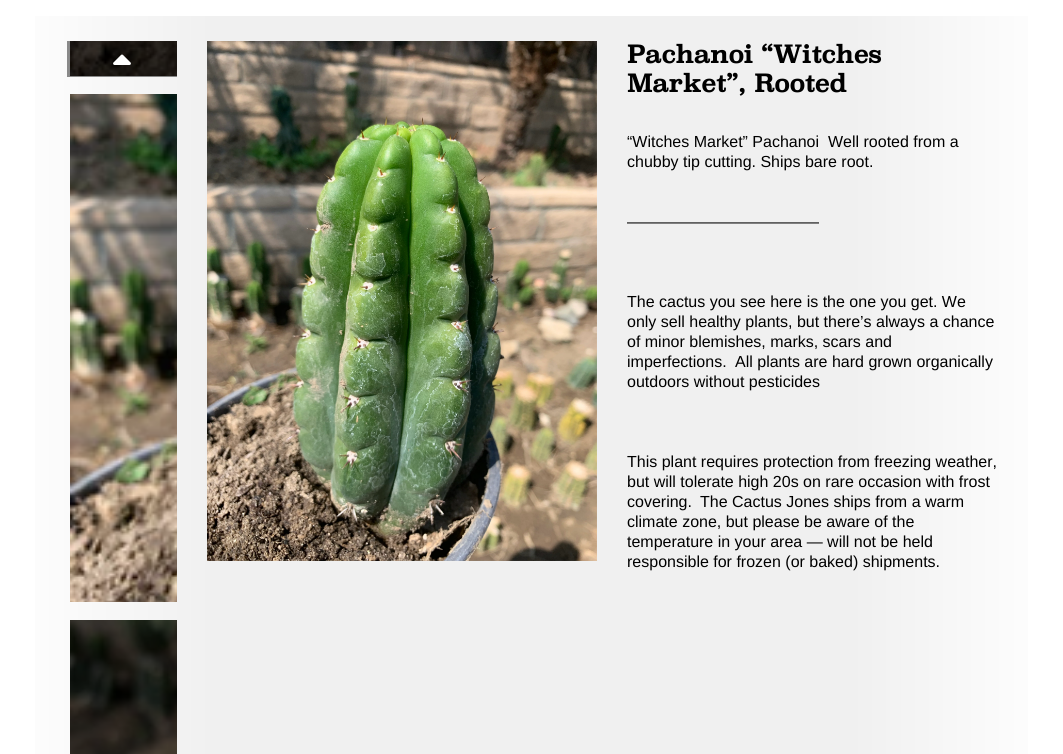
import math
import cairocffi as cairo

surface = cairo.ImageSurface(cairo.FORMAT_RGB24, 1063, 754)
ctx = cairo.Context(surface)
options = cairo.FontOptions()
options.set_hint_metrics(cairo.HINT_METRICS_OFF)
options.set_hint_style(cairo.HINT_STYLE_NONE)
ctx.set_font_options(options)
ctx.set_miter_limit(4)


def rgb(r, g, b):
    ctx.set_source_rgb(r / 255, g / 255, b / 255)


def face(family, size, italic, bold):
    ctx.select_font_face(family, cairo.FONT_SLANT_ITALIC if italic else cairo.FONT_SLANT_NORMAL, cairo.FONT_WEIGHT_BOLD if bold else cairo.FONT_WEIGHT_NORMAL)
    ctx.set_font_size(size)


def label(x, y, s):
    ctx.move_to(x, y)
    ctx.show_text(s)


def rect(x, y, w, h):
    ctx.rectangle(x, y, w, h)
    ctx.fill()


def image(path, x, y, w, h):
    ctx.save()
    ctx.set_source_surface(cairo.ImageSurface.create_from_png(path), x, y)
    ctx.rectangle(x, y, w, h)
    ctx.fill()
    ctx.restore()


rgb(255, 255, 255)
ctx.paint()
gradient = cairo.LinearGradient(0, 707, 1063, 707)
gradient.add_color_stop_rgba(0, 1, 1, 1, 1)
gradient.add_color_stop_rgba(0.2, 0.941, 0.941, 0.941, 1)
gradient.add_color_stop_rgba(0.8, 0.941, 0.941, 0.941, 1)
gradient.add_color_stop_rgba(1, 1, 1, 1, 1)
ctx.set_source(gradient)
rect(35, 16, 993, 738)
gradient = cairo.LinearGradient(0, 707, 1063, 707)
gradient.add_color_stop_rgba(0, 0.549, 0.549, 0.549, 1)
gradient.add_color_stop_rgba(0.2, 0.518, 0.518, 0.518, 1)
gradient.add_color_stop_rgba(0.8, 0.518, 0.518, 0.518, 1)
gradient.add_color_stop_rgba(1, 0.549, 0.549, 0.549, 1)
ctx.set_source(gradient)
rect(67, 41, 110, 36)
image('image0.png', 70, 41, 107, 35)
image('image1.png', 70, 94, 107, 508)
image('image2.png', 70, 620, 107, 134)
image('image3.png', 113, 54, 18, 11)
image('image4.png', 207, 41, 390, 520)
face('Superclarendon', 24, 0, 1)
rgb(0, 0, 0)
label(627, 63, 'Pachanoi “Witches')
label(627, 92, 'Market”, Rooted')
face('Liberation Sans', 16, 0, 0)
label(627, 147, '“Witches Market” Pachanoi  Well rooted from a')
label(627, 167, 'chubby tip cutting. Ships bare root.')
label(627, 227, '————————————')
label(627, 307, 'The cactus you see here is the one you get. We')
label(627, 327, 'only sell healthy plants, but there’s always a chance')
label(627, 347, 'of minor blemishes, marks, scars and')
label(627, 367, 'imperfections.')
label(735, 367, 'All plants are hard grown organically')
label(627, 387, 'outdoors without pesticides')
label(627, 467, 'This plant requires protection from freezing weather,')
label(627, 487, 'but will tolerate high 20s on rare occasion with frost')
label(627, 507, 'covering.')
label(700, 507, 'The Cactus Jones ships from a warm')
label(627, 527, 'climate zone, but please be aware of the')
label(627, 547, 'temperature in your area — will not be held')
label(627, 567, 'responsible for frozen (or baked) shipments.')
surface.write_to_png('render.png')
